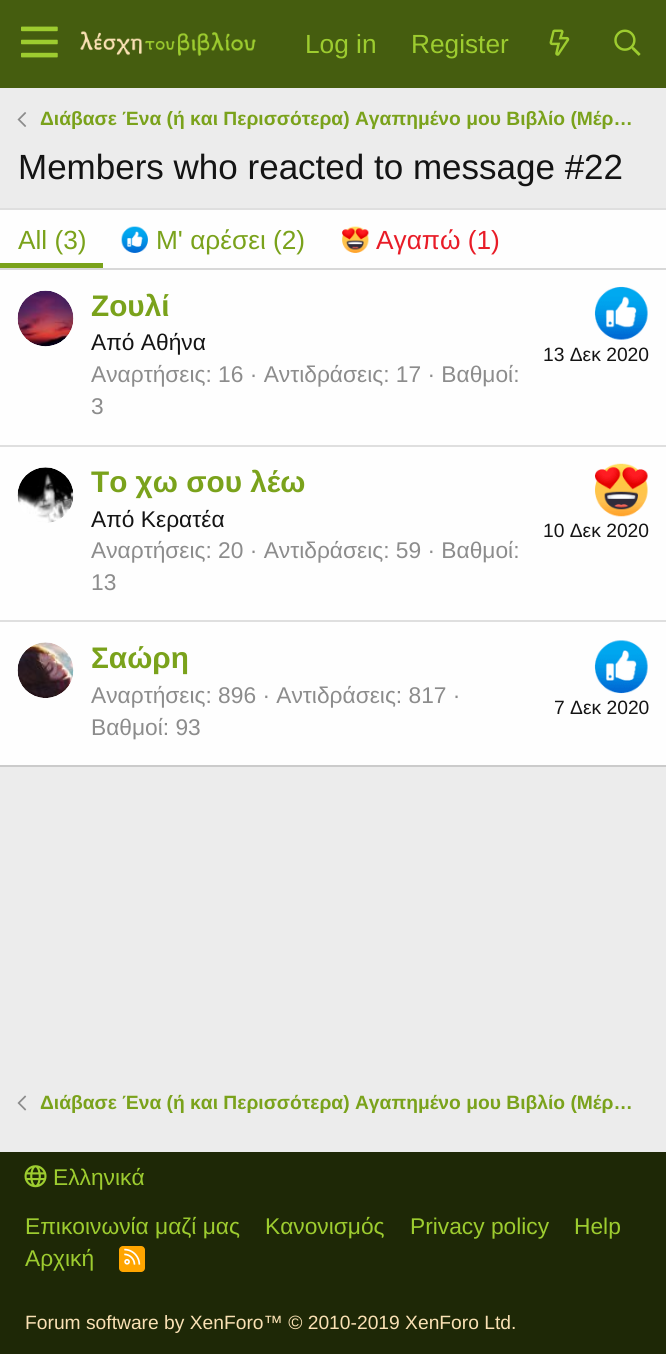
import math
import cairocffi as cairo

surface = cairo.ImageSurface(cairo.FORMAT_RGB24, 666, 1354)
ctx = cairo.Context(surface)
options = cairo.FontOptions()
options.set_hint_metrics(cairo.HINT_METRICS_OFF)
options.set_hint_style(cairo.HINT_STYLE_NONE)
ctx.set_font_options(options)
ctx.set_miter_limit(4)


def rgb(r, g, b):
    ctx.set_source_rgb(r / 255, g / 255, b / 255)


def face(family, size, italic, bold):
    ctx.select_font_face(family, cairo.FONT_SLANT_ITALIC if italic else cairo.FONT_SLANT_NORMAL, cairo.FONT_WEIGHT_BOLD if bold else cairo.FONT_WEIGHT_NORMAL)
    ctx.set_font_size(size)


def label(x, y, s):
    ctx.move_to(x, y)
    ctx.show_text(s)


def rect(x, y, w, h):
    ctx.rectangle(x, y, w, h)
    ctx.fill()


def rrect(x, y, w, h, r):
    ctx.new_sub_path()
    for i, (u, v) in enumerate([(x + w - r, y + h - r), (x + r, y + h - r), (x + r, y + r), (x + w - r, y + r)]):
        ctx.arc(u, v, r, i * math.pi / 2, (i + 1) * math.pi / 2)
    ctx.close_path()


def image(path, x, y, w, h):
    ctx.save()
    ctx.set_source_surface(cairo.ImageSurface.create_from_png(path), x, y)
    ctx.rectangle(x, y, w, h)
    ctx.fill()
    ctx.restore()


rgb(236, 236, 236)
ctx.paint()
rgb(69, 93, 15)
rect(0, 0, 666, 88)
image('image0.png', 21, 26, 37, 32)
image('image1.png', 80, 31, 176, 25)
face('Liberation Sans', 26.25, 0, 0)
rgb(157, 204, 47)
label(305, 53, 'Log in')
label(411, 53, 'Register')
image('image2.png', 549, 29, 21, 27)
image('image3.png', 614, 29, 27, 27)
image('image4.png', 17, 112, 10, 15)
face('Liberation Sans', 19.25, 0, 1)
rgb(122, 162, 27)
label(40, 125, 'Διάβασε Ένα (ή και Περισσότερα) Αγαπημένο μου Βιβλίο (Μέρ…')
face('Liberation Sans', 35, 0, 0)
rgb(20, 20, 20)
label(18, 179, 'Members who reacted to message #22')
rgb(254, 254, 254)
rect(0, 210, 666, 555)
rgb(223, 223, 223)
rect(0, 208, 666, 2)
rgb(203, 203, 203)
rect(0, 765, 666, 2)
rgb(216, 216, 216)
rect(0, 268, 666, 2)
rgb(122, 162, 27)
rect(0, 263, 103, 5)
face('Liberation Sans', 26.25, 0, 0)
label(18, 249, 'All (3)')
image('image5.png', 121, 226, 27, 27)
label(156, 249, 'Μ\' αρέσει (2)')
image('image6.png', 342, 226, 27, 27)
rgb(232, 28, 39)
label(376, 249, 'Αγαπώ (1)')
image('image7.png', 17, 290, 57, 57)
face('Liberation Sans', 29.75, 0, 1)
rgb(122, 162, 27)
label(91, 316, 'Ζουλί')
face('Liberation Sans', 22.75, 0, 0)
rgb(20, 20, 20)
label(91, 350, 'Από Αθήνα')
image('image8.png', 594, 286, 54, 54)
face('Liberation Sans', 19.25, 0, 0)
label(543, 361, '13 Δεκ 2020')
face('Liberation Sans', 22.75, 0, 0)
rgb(140, 140, 140)
label(91, 382, 'Αναρτήσεις: 16 · Αντιδράσεις: 17 · Βαθμοί:')
label(91, 414, '3')
rgb(223, 223, 223)
rect(0, 445, 666, 2)
image('image9.png', 17, 467, 57, 56)
face('Liberation Sans', 29.75, 0, 1)
rgb(122, 162, 27)
label(91, 492, 'Το χω σου λέω')
face('Liberation Sans', 22.75, 0, 0)
rgb(20, 20, 20)
label(91, 527, 'Από Κερατέα')
image('image10.png', 595, 463, 53, 54)
face('Liberation Sans', 19.25, 0, 0)
label(543, 537, '10 Δεκ 2020')
face('Liberation Sans', 22.75, 0, 0)
rgb(140, 140, 140)
label(91, 558, 'Αναρτήσεις: 20 · Αντιδράσεις: 59 · Βαθμοί:')
label(91, 590, '13')
rgb(223, 223, 223)
rect(0, 620, 666, 2)
image('image11.png', 17, 642, 57, 56)
face('Liberation Sans', 29.75, 0, 1)
rgb(122, 162, 27)
label(91, 668, 'Σαώρη')
face('Liberation Sans', 22.75, 0, 0)
rgb(140, 140, 140)
label(91, 703, 'Αναρτήσεις: 896 · Αντιδράσεις: 817 ·')
label(91, 735, 'Βαθμοί: 93')
image('image12.png', 594, 640, 54, 54)
face('Liberation Sans', 19.25, 0, 0)
rgb(20, 20, 20)
label(554, 714, '7 Δεκ 2020')
image('image13.png', 17, 1095, 10, 16)
face('Liberation Sans', 19.25, 0, 1)
rgb(122, 162, 27)
label(40, 1109, 'Διάβασε Ένα (ή και Περισσότερα) Αγαπημένο μου Βιβλίο (Μέρ…')
rgb(30, 40, 6)
rect(0, 1152, 666, 202)
image('image14.png', 24, 1165, 23, 23)
face('Liberation Sans', 22.75, 0, 0)
rgb(157, 204, 47)
label(53, 1185, 'Ελληνικά')
label(25, 1234, 'Επικοινωνία μαζί μας')
label(265, 1234, 'Κανονισμός')
label(410, 1234, 'Privacy policy')
label(574, 1234, 'Help')
label(25, 1266, 'Αρχική')
rgb(255, 165, 0)
rrect(119, 1246, 26, 26, 4)
ctx.fill()
image('image15.png', 124, 1248, 17, 17)
face('Liberation Sans', 19.25, 0, 0)
rgb(250, 225, 180)
label(25, 1329, 'Forum software by XenForo™ © 2010-2019 XenForo Ltd.')
surface.write_to_png('render.png')
